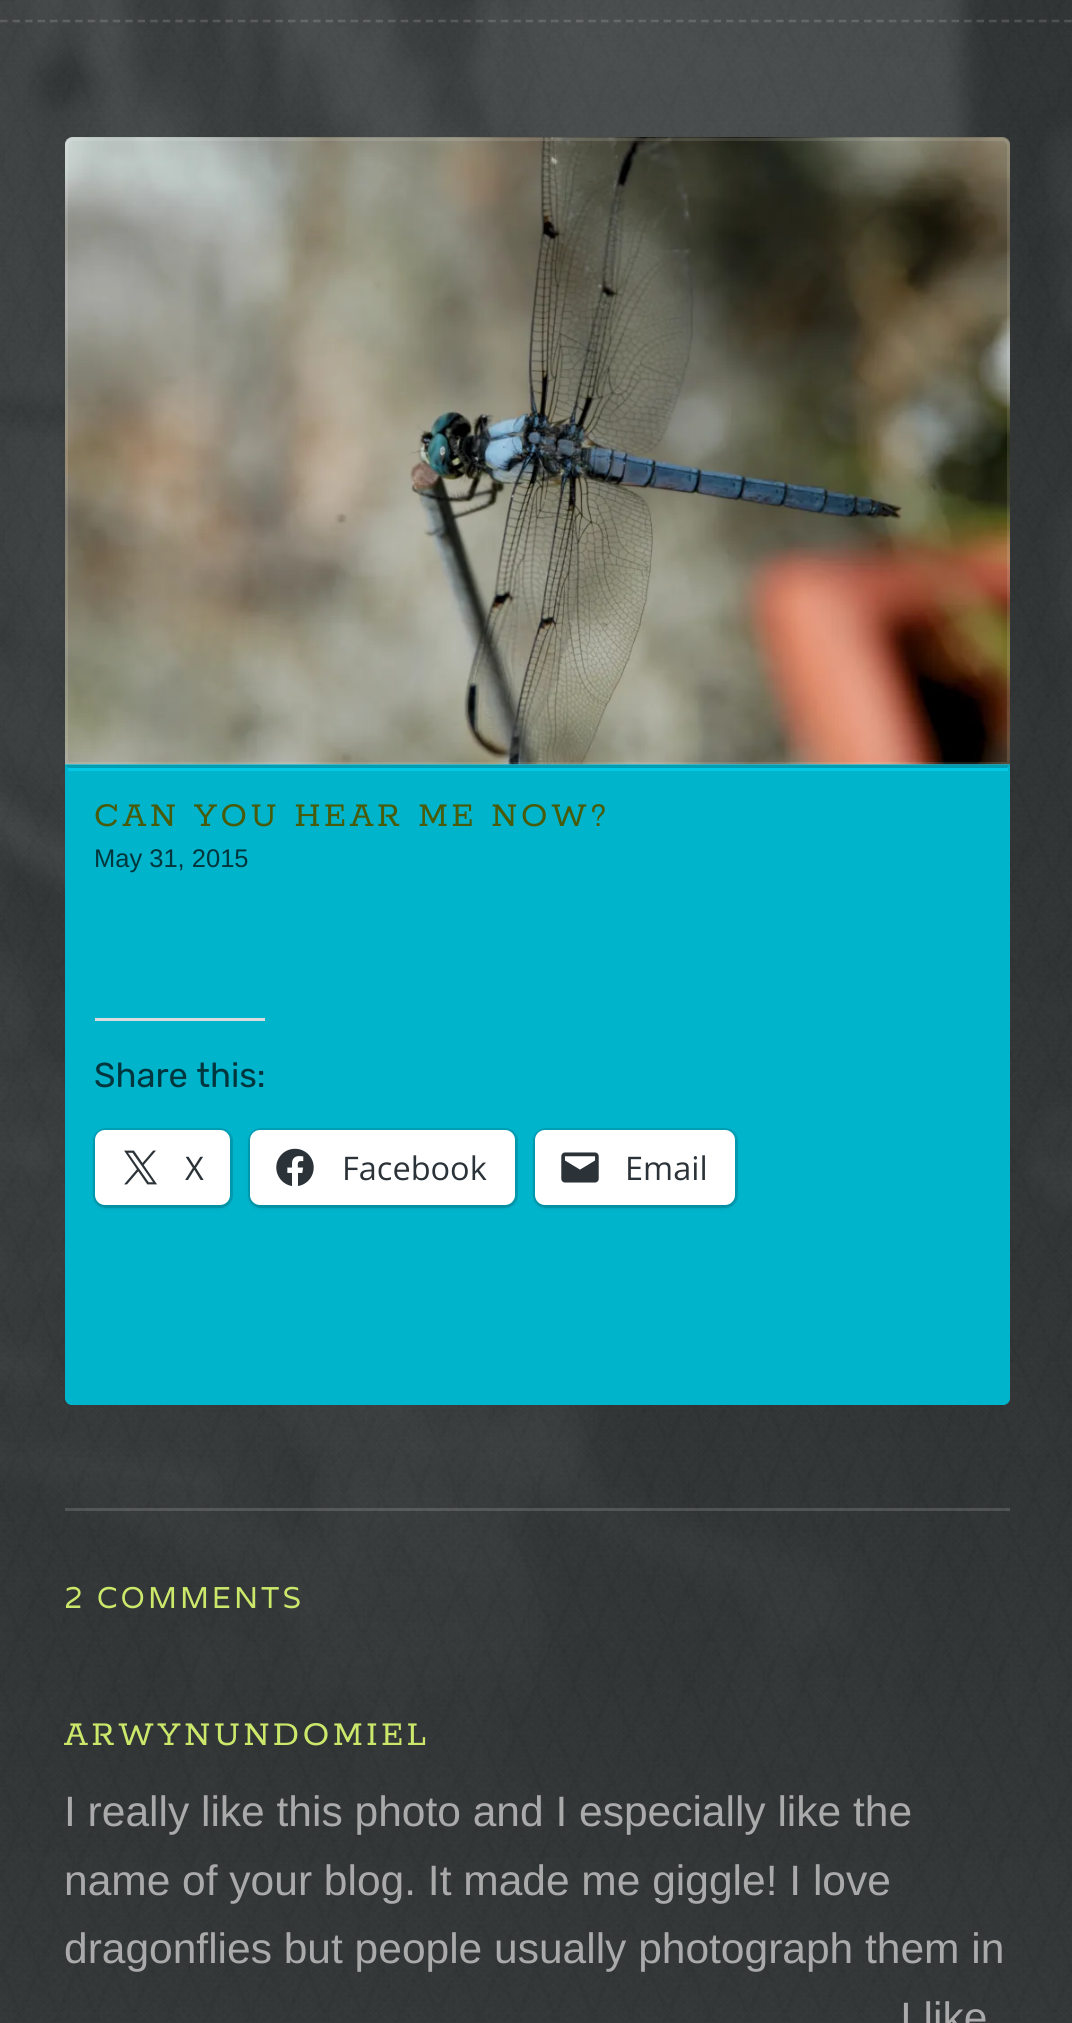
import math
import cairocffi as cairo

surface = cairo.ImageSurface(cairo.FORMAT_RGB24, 1072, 2023)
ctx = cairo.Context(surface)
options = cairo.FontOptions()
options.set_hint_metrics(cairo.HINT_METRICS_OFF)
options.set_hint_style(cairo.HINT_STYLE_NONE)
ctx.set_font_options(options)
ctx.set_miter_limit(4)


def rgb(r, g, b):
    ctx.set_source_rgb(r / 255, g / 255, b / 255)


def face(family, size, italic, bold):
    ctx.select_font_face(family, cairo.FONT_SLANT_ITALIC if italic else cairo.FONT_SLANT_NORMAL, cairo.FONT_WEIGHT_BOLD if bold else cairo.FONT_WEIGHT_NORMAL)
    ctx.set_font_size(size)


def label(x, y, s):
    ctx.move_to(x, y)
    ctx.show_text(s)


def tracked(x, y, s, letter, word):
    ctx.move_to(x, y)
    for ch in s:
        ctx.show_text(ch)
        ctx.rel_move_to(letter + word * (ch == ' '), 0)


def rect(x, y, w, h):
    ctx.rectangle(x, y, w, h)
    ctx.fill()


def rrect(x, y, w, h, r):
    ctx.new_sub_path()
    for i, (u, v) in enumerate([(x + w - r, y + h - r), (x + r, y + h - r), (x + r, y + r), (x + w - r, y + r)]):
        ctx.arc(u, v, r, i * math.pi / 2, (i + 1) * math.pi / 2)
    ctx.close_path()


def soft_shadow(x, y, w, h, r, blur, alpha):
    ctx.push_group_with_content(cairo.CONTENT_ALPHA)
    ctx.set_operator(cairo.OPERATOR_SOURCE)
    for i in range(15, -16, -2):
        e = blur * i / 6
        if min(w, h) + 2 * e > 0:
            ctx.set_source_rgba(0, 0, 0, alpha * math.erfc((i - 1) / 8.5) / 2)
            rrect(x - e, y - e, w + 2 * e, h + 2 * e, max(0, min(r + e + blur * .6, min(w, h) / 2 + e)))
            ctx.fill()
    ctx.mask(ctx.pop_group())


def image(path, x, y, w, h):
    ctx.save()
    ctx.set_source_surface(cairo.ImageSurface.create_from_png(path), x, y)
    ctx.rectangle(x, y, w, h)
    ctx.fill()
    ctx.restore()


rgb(52, 56, 56)
ctx.paint()
image('image0.png', 0, 0, 1072, 2022)
ctx.new_path()
ctx.move_to(0, 21)
ctx.line_to(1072.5, 21)
ctx.set_source_rgba(1, 1, 1, 0.15)
ctx.set_line_width(2.5)
ctx.set_dash([7.5, 5.02])
ctx.stroke()
rgb(0, 180, 204)
ctx.new_path()
ctx.move_to(73, 138)
ctx.line_to(1002, 138)
ctx.curve_to(1006.5, 138, 1010, 141.5, 1010, 146)
ctx.line_to(1010, 765)
ctx.line_to(65, 765)
ctx.line_to(65, 146)
ctx.curve_to(65, 141.5, 68.5, 138, 73, 138)
ctx.close_path()
ctx.fill()
image('image1.png', 65, 137, 945, 628)
ctx.new_path()
ctx.move_to(73, 139.5)
ctx.line_to(1002, 139.5)
ctx.curve_to(1005.5, 139.5, 1008.5, 142.5, 1008.5, 146)
ctx.line_to(1008.5, 763.5)
ctx.line_to(66.5, 763.5)
ctx.line_to(66.5, 146)
ctx.curve_to(66.5, 142.5, 69.5, 139.5, 73, 139.5)
ctx.close_path()
ctx.set_source_rgba(1, 1, 1, 0.12)
ctx.set_line_width(3)
ctx.set_dash([])
ctx.stroke()
rgb(0, 180, 204)
ctx.new_path()
ctx.move_to(65, 765)
ctx.line_to(1010, 765)
ctx.line_to(1010, 1397)
ctx.curve_to(1010, 1401.5, 1006.5, 1405, 1002, 1405)
ctx.line_to(73, 1405)
ctx.curve_to(68.5, 1405, 65, 1401.5, 65, 1397)
ctx.close_path()
ctx.fill()
rgb(0, 157, 178)
ctx.new_path()
ctx.move_to(65, 765)
ctx.line_to(68, 768)
ctx.line_to(1007, 768)
ctx.line_to(1010, 765)
ctx.close_path()
ctx.fill()
rgb(0, 180, 204)
ctx.new_path()
ctx.move_to(1010, 765)
ctx.line_to(1007, 768)
ctx.line_to(1008, 768)
ctx.line_to(1008, 1398)
ctx.line_to(1006, 1401)
ctx.line_to(1008, 1403)
ctx.curve_to(1009, 1402, 1010, 1400, 1010, 1398)
ctx.close_path()
ctx.fill()
ctx.new_path()
ctx.move_to(72, 1405)
ctx.line_to(1002, 1405)
ctx.curve_to(1005, 1405, 1007, 1404, 1008, 1403)
ctx.line_to(1006, 1401)
ctx.line_to(1002, 1402)
ctx.line_to(72, 1402)
ctx.line_to(69, 1401)
ctx.line_to(67, 1403)
ctx.curve_to(68, 1404, 70, 1405, 72, 1405)
ctx.close_path()
ctx.fill()
ctx.new_path()
ctx.move_to(68, 768)
ctx.line_to(65, 765)
ctx.line_to(65, 1398)
ctx.curve_to(65, 1400, 66, 1402, 67, 1403)
ctx.line_to(69, 1401)
ctx.line_to(68, 1398)
ctx.close_path()
ctx.fill()
rgb(0, 202, 229)
rect(68, 768, 940, 3)
face('Rokkitt', 37, 0, 0)
rgb(72, 91, 10)
tracked(94, 826, 'CAN YOU HEAR ME NOW?', 3.7, 0)
face('Liberation Sans', 25.5, 0, 0)
rgb(0, 54, 61)
label(94, 867, 'May 31, 2015')
rgb(220, 220, 222)
rect(95, 1018, 170, 3)
face('Rubik', 34.5, 0, 0)
rgb(0, 54, 61)
label(94, 1087, 'Share this:')
rrect(94.5, 1129.5, 137, 77, 11.5)
rgb(0, 158, 180)
ctx.stroke()
rgb(0, 0, 0)
soft_shadow(95, 1133, 135, 75, 10, 2.5, 0.12)
rgb(255, 255, 255)
rrect(95, 1130, 135, 75, 10)
ctx.fill()
image('image2.png', 124, 1150, 33, 35)
face('Open Sans', 32.5, 0, 0)
rgb(44, 51, 56)
label(185, 1180, 'X')
rrect(249.5, 1129.5, 267, 77, 11.5)
rgb(0, 158, 180)
ctx.stroke()
rgb(0, 0, 0)
soft_shadow(250, 1133, 265, 75, 10, 2.5, 0.12)
rgb(255, 255, 255)
rrect(250, 1130, 265, 75, 10)
ctx.fill()
image('image3.png', 276, 1148, 38, 38)
rgb(44, 51, 56)
label(342, 1180, 'Facebook')
rrect(534.5, 1129.5, 202, 77, 11.5)
rgb(0, 158, 180)
ctx.stroke()
rgb(0, 0, 0)
soft_shadow(535, 1133, 200, 75, 10, 2.5, 0.12)
rgb(255, 255, 255)
rrect(535, 1130, 200, 75, 10)
ctx.fill()
image('image4.png', 561, 1152, 38, 31)
rgb(44, 51, 56)
label(625, 1180, 'Email')
ctx.set_source_rgba(1, 1, 1, 0.15)
rect(65, 1508, 945, 3)
face('Varela', 30, 0, 0)
rgb(203, 232, 107)
tracked(64, 1608, '2 COMMENTS', 3, 0)
face('Rokkitt', 37, 0, 0)
tracked(64, 1745, 'ARWYNUNDOMIEL', 3.7, 0)
face('Liberation Sans', 42.5, 0, 0)
rgb(170, 170, 170)
label(64, 1826, 'I really like this photo and I especially like the')
label(64, 1895, 'name of your blog. It made me giggle! I love')
label(64, 1963, 'dragonflies but people usually photograph them in')
label(900, 2032, 'I like')
surface.write_to_png('render.png')
